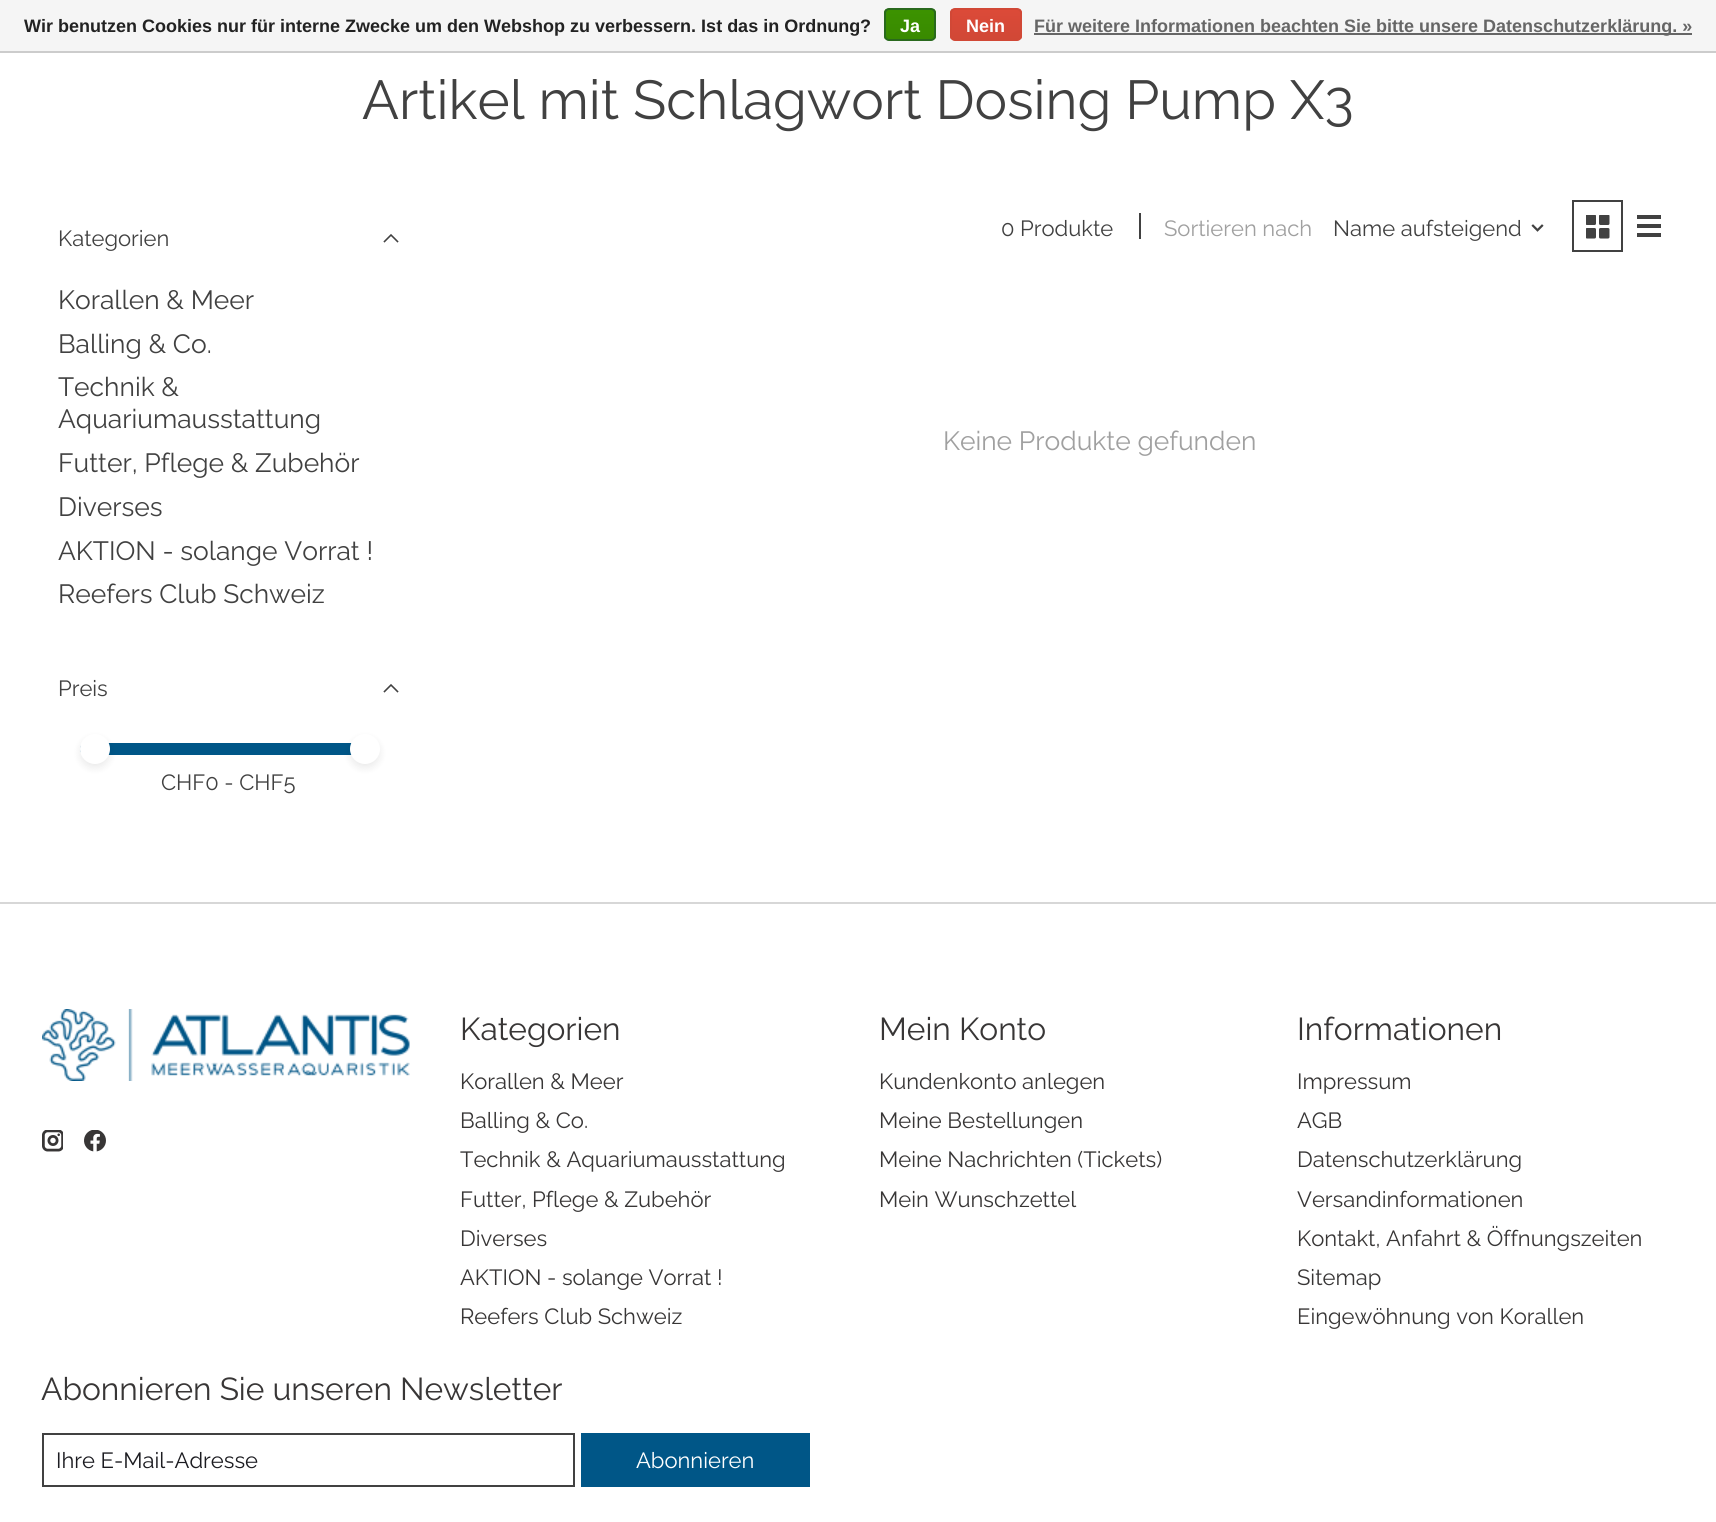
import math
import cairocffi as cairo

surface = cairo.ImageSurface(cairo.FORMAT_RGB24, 1716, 1522)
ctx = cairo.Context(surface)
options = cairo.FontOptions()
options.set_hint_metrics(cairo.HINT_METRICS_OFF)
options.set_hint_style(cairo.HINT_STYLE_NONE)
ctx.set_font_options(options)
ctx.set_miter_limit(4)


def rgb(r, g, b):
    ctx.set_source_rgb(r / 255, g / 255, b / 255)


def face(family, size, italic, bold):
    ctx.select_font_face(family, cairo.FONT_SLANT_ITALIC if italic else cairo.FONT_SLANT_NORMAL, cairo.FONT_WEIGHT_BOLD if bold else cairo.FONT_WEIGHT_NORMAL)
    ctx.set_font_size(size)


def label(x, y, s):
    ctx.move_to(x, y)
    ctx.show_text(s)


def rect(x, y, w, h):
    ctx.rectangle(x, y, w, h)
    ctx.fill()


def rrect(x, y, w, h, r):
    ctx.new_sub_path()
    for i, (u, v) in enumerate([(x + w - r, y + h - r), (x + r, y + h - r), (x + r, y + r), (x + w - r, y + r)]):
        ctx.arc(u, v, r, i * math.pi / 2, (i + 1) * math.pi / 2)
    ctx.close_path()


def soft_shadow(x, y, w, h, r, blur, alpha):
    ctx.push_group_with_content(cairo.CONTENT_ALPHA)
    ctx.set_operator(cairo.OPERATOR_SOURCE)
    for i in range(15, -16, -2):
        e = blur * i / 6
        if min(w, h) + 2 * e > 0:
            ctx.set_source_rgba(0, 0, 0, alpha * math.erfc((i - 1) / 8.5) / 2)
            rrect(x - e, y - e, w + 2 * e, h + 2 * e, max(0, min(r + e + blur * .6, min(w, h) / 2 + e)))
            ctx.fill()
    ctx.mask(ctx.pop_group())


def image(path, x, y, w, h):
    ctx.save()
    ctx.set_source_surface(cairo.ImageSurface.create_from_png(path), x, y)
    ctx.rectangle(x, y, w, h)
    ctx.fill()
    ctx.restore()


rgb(255, 255, 255)
ctx.paint()
rgb(245, 245, 245)
rect(0, 0, 1716, 51)
rgb(204, 204, 204)
rect(0, 51, 1716, 2)
face('Liberation Sans', 18, 0, 1)
rgb(34, 34, 34)
label(24, 32, 'Wir benutzen Cookies nur für interne Zwecke um den Webshop zu verbessern. Ist das in Ordnung?')
ctx.save()
rrect(884, 8, 52, 33, 5)
ctx.clip()
gradient = cairo.LinearGradient(910, 9, 910, 39)
gradient.add_color_stop_rgba(0, 0.235, 0.576, 0, 1)
gradient.add_color_stop_rgba(1, 0.224, 0.541, 0, 1)
ctx.set_source(gradient)
rect(884, 9, 52, 30)
ctx.restore()
rrect(885, 9, 50, 31, 4)
rgb(41, 105, 29)
ctx.stroke()
rgb(255, 255, 255)
label(900, 32, 'Ja')
ctx.save()
rrect(950, 8, 72, 33, 5)
ctx.clip()
gradient = cairo.LinearGradient(986, 9, 986, 39)
gradient.add_color_stop_rgba(0, 0.863, 0.29, 0.22, 1)
gradient.add_color_stop_rgba(1, 0.82, 0.282, 0.212, 1)
ctx.set_source(gradient)
rect(950, 9, 72, 30)
ctx.restore()
rrect(951, 9, 70, 31, 4)
rgb(209, 72, 54)
ctx.stroke()
rgb(255, 255, 255)
label(966, 32, 'Nein')
rgb(102, 102, 102)
rect(1034, 33, 658, 2)
label(1034, 32, 'Für weitere Informationen beachten Sie bitte unsere Datenschutzerklärung. »')
face('Raleway', 54.75, 0, 0)
rgb(65, 65, 65)
label(362, 119, 'Artikel mit Schlagwort Dosing Pump X3')
face('Raleway', 22, 0, 0)
label(58, 246, 'Kategorien')
ctx.new_path()
ctx.move_to(384.5, 241.5)
ctx.line_to(391, 235)
ctx.move_to(397.5, 241.5)
ctx.line_to(391, 235)
ctx.set_line_width(1.6)
ctx.set_line_cap(cairo.LINE_CAP_SQUARE)
ctx.stroke()
face('Raleway', 26.4, 0, 0)
label(58, 309, 'Korallen & Meer')
label(58, 353, 'Balling & Co.')
label(58, 396, 'Technik &')
label(58, 428, 'Aquariumausstattung')
label(58, 472, 'Futter, Pflege & Zubehör')
label(58, 516, 'Diverses')
label(58, 560, 'AKTION - solange Vorrat !')
label(58, 603, 'Reefers Club Schweiz')
face('Raleway', 22, 0, 0)
label(58, 696, 'Preis')
ctx.new_path()
ctx.move_to(384.5, 691.5)
ctx.line_to(391, 685)
ctx.move_to(397.5, 691.5)
ctx.line_to(391, 685)
ctx.stroke()
rgb(0, 86, 135)
ctx.new_path()
ctx.move_to(86, 743)
ctx.line_to(365, 743)
ctx.line_to(365, 755)
ctx.line_to(86, 755)
ctx.curve_to(82.5, 755, 80, 752.5, 80, 749)
ctx.curve_to(80, 745.5, 82.5, 743, 86, 743)
ctx.close_path()
ctx.fill()
rgb(0, 0, 0)
soft_shadow(80, 738, 30, 30, 15, 4, 0.08)
rgb(255, 255, 255)
ctx.arc(95, 749, 15, 0, 2 * math.pi)
ctx.fill()
rgb(0, 0, 0)
soft_shadow(350, 738, 30, 30, 15, 4, 0.08)
rgb(255, 255, 255)
ctx.arc(365, 749, 15, 0, 2 * math.pi)
ctx.fill()
rgb(65, 65, 65)
label(161, 790, 'CHF0 - CHF5')
label(1001, 236, '0 Produkte')
rect(1139, 213, 2, 26)
rgb(160, 160, 160)
label(1164, 236, 'Sortieren nach')
rgb(65, 65, 65)
label(1333, 236, 'Name aufsteigend')
image('image0.png', 1531, 224, 13, 8)
ctx.rectangle(1573, 201, 49, 50)
ctx.set_line_width(2)
ctx.set_line_cap(cairo.LINE_CAP_BUTT)
ctx.stroke()
image('image1.png', 1586, 215, 24, 24)
rect(1637, 215, 24, 4)
rect(1637, 224, 24, 4)
rect(1637, 233, 24, 4)
face('Raleway', 26.4, 0, 0)
rgb(160, 160, 160)
label(943, 450, 'Keine Produkte gefunden')
rgb(215, 215, 215)
rect(0, 902, 1716, 2)
image('image2.png', 42, 1009, 368, 72)
image('image3.png', 42, 1130, 21, 22)
image('image4.png', 84, 1130, 22, 22)
face('Raleway', 31.7, 0, 0)
rgb(56, 54, 54)
label(460, 1040, 'Kategorien')
face('Raleway', 22, 0, 0)
label(460, 1089, 'Korallen & Meer')
label(460, 1128, 'Balling & Co.')
label(460, 1167, 'Technik & Aquariumausstattung')
label(460, 1207, 'Futter, Pflege & Zubehör')
label(460, 1246, 'Diverses')
label(460, 1285, 'AKTION - solange Vorrat !')
label(460, 1324, 'Reefers Club Schweiz')
face('Raleway', 31.7, 0, 0)
label(879, 1040, 'Mein Konto')
face('Raleway', 22, 0, 0)
label(879, 1089, 'Kundenkonto anlegen')
label(879, 1128, 'Meine Bestellungen')
label(879, 1167, 'Meine Nachrichten (Tickets)')
label(879, 1207, 'Mein Wunschzettel')
face('Raleway', 31.7, 0, 0)
label(1297, 1040, 'Informationen')
face('Raleway', 22, 0, 0)
label(1297, 1089, 'Impressum')
label(1297, 1128, 'AGB')
label(1297, 1167, 'Datenschutzerklärung')
label(1297, 1207, 'Versandinformationen')
label(1297, 1246, 'Kontakt, Anfahrt & Öffnungszeiten')
label(1297, 1285, 'Sitemap')
label(1297, 1324, 'Eingewöhnung von Korallen')
face('Raleway', 31.7, 0, 0)
label(41, 1400, 'Abonnieren Sie unseren Newsletter')
ctx.rectangle(43, 1434, 531, 52)
rgb(65, 65, 65)
ctx.stroke()
face('Raleway', 22, 0, 0)
rgb(28, 28, 33)
label(56, 1468, 'Ihre E-Mail-Adresse')
rgb(0, 86, 135)
rect(581, 1433, 229, 54)
rgb(255, 255, 255)
label(636, 1468, 'Abonnieren')
surface.write_to_png('render.png')
